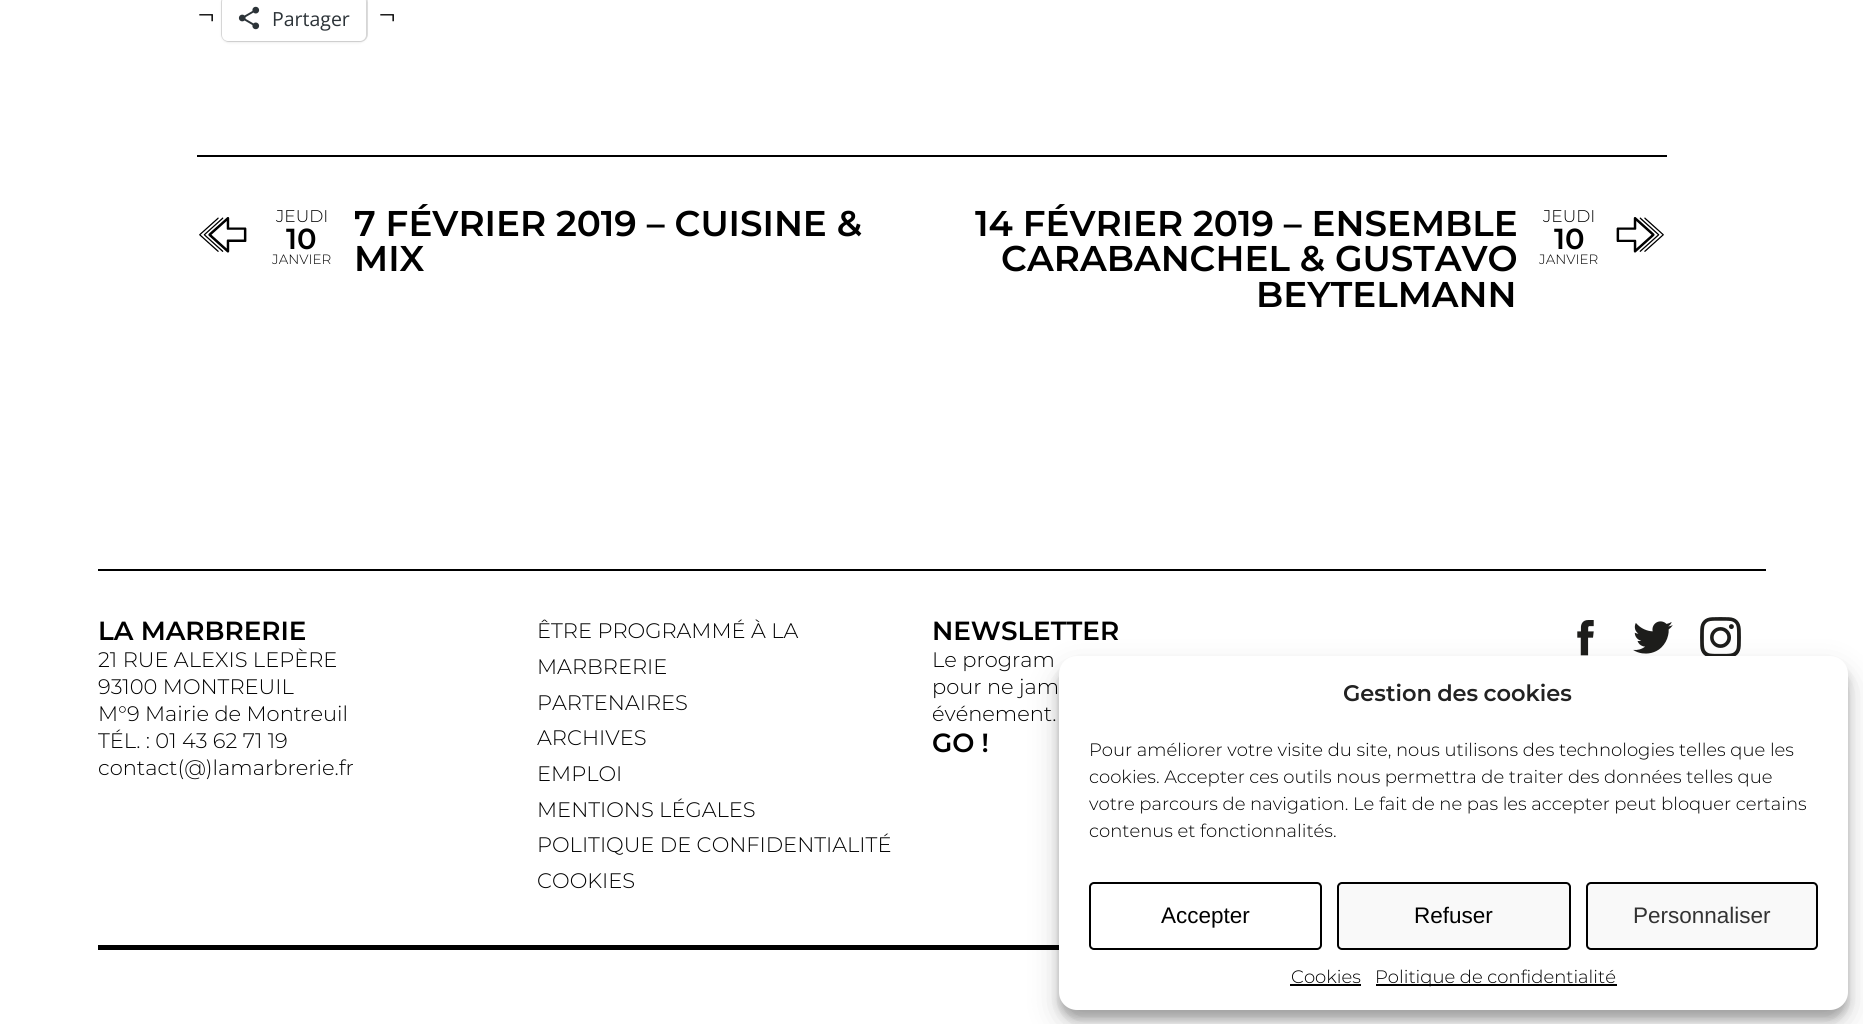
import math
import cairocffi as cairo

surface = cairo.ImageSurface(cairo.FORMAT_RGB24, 1863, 1024)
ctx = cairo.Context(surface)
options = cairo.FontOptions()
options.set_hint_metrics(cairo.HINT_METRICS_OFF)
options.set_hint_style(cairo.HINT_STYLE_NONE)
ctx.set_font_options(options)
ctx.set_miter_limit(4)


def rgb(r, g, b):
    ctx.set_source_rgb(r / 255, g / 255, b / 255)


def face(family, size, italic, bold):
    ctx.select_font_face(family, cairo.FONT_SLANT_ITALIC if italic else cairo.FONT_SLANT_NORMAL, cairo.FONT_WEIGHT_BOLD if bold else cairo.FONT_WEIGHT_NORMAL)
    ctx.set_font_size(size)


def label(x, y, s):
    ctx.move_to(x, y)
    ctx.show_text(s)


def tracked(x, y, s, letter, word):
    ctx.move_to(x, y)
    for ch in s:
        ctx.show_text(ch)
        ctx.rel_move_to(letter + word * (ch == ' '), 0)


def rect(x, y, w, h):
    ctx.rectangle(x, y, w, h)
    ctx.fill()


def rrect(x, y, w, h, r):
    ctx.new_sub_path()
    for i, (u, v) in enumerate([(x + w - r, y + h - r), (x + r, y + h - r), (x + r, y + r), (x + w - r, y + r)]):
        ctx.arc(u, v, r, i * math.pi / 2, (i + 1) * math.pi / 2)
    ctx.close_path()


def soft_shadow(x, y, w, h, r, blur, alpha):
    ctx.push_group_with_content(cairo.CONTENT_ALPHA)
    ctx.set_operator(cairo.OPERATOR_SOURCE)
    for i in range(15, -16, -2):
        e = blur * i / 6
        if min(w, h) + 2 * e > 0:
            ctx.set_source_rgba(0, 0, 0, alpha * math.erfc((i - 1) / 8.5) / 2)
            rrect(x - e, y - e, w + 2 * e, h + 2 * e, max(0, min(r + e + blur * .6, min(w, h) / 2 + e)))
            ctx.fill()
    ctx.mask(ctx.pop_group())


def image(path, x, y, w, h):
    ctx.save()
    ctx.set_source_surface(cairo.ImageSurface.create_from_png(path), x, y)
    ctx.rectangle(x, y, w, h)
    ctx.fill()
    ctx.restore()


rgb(255, 255, 255)
ctx.paint()
face('Montserrat Light', 32, 0, 0)
rgb(0, 0, 0)
label(197, 26, '¬')
rrect(222, -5, 145, 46, 7)
rgb(224, 224, 224)
ctx.stroke()
rgb(0, 0, 0)
soft_shadow(222, -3, 144, 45, 6, 1.5, 0.12)
rgb(255, 255, 255)
rrect(222, -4, 144, 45, 6)
ctx.fill()
image('image0.png', 238, 6, 22, 24)
face('Open Sans', 19.5, 0, 0)
rgb(44, 51, 56)
label(272, 26, 'Partager')
face('Montserrat Light', 32, 0, 0)
rgb(0, 0, 0)
label(378, 26, '¬')
rect(197, 155, 1470, 2)
image('image1.png', 199, 217, 48, 36)
face('Montserrat Light', 17, 0, 0)
label(276, 222, 'JEUDI')
face('Montserrat SemiBold', 29, 0, 0)
label(286, 249, '10')
face('Montserrat Light', 13.5, 0, 0)
label(272, 264, 'JANVIER')
face('Montserrat SemiBold', 35.75, 0, 0)
label(354, 236, '7 FÉVRIER 2019 – CUISINE &')
label(354, 271, 'MIX')
label(975, 236, '14 FÉVRIER 2019 – ENSEMBLE')
label(1001, 271, 'CARABANCHEL & GUSTAVO')
label(1256, 307, 'BEYTELMANN')
face('Montserrat Light', 17, 0, 0)
label(1543, 222, 'JEUDI')
face('Montserrat SemiBold', 29, 0, 0)
label(1554, 249, '10')
face('Montserrat Light', 13.5, 0, 0)
label(1539, 264, 'JANVIER')
image('image2.png', 1616, 217, 48, 36)
rect(98, 569, 1668, 2)
rect(98, 945, 961, 5)
face('Montserrat SemiBold', 26.25, 0, 0)
label(98, 640, 'LA MARBRERIE')
face('Montserrat Light', 21, 0, 0)
label(98, 667, '21 RUE ALEXIS LEPÈRE')
label(98, 694, '93100 MONTREUIL')
label(98, 721, 'M°9 Mairie de Montreuil')
label(98, 748, 'TÉL. : 01 43 62 71 19')
label(98, 775, 'contact(@)lamarbrerie.fr')
label(537, 638, 'ÊTRE PROGRAMMÉ À LA')
label(537, 674, 'MARBRERIE')
label(537, 710, 'PARTENAIRES')
label(537, 745, 'ARCHIVES')
label(537, 781, 'EMPLOI')
label(537, 817, 'MENTIONS LÉGALES')
label(537, 852, 'POLITIQUE DE CONFIDENTIALITÉ')
label(537, 888, 'COOKIES')
face('Montserrat SemiBold', 26.25, 0, 0)
label(932, 640, 'NEWSLETTER')
face('Montserrat Light', 21, 0, 0)
label(932, 667, 'Le program')
label(932, 694, 'pour ne jam')
label(932, 721, 'événement.')
face('Montserrat SemiBold', 26.25, 0, 0)
label(932, 752, 'GO !')
image('image3.png', 1577, 620, 17, 36)
image('image4.png', 1633, 621, 40, 33)
image('image5.png', 1700, 617, 41, 39)
rgb(0, 0, 0)
soft_shadow(1059, 665, 789, 354, 18, 4.5, 0.23)
soft_shadow(1059, 671, 789, 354, 18, 15, 0.19)
rgb(255, 255, 255)
rrect(1059, 656, 789, 354, 18)
ctx.fill()
face('Montserrat SemiBold', 22.5, 0, 0)
rgb(34, 34, 34)
tracked(1343, 701, 'Gestion des cookies', 0, -1)
face('Montserrat Light', 18, 0, 0)
rgb(0, 0, 0)
label(1089, 756, 'Pour améliorer votre visite du site, nous utilisons des technologies telles que les')
label(1089, 783, 'cookies. Accepter ces outils nous permettra de traiter des données telles que')
label(1089, 810, 'votre parcours de navigation. Le fait de ne pas les accepter peut bloquer certains')
label(1089, 837, 'contenus et fonctionnalités.')
rrect(1090, 883, 231, 66, 4)
ctx.stroke()
face('Liberation Sans', 22.5, 0, 0)
label(1161, 923, 'Accepter')
rgb(249, 249, 249)
rrect(1338, 883, 232, 66, 4)
ctx.fill_preserve()
rgb(0, 0, 0)
ctx.stroke()
label(1414, 923, 'Refuser')
rgb(249, 249, 249)
rrect(1587, 883, 230, 66, 4)
ctx.fill_preserve()
rgb(0, 0, 0)
ctx.stroke()
rgb(51, 51, 51)
label(1633, 923, 'Personnaliser')
face('Montserrat Light', 18, 0, 0)
rgb(0, 0, 0)
label(1291, 983, 'Cookies')
rect(1290, 984, 71, 2)
rect(1376, 984, 241, 2)
label(1375, 983, 'Politique de confidentialité')
surface.write_to_png('render.png')
